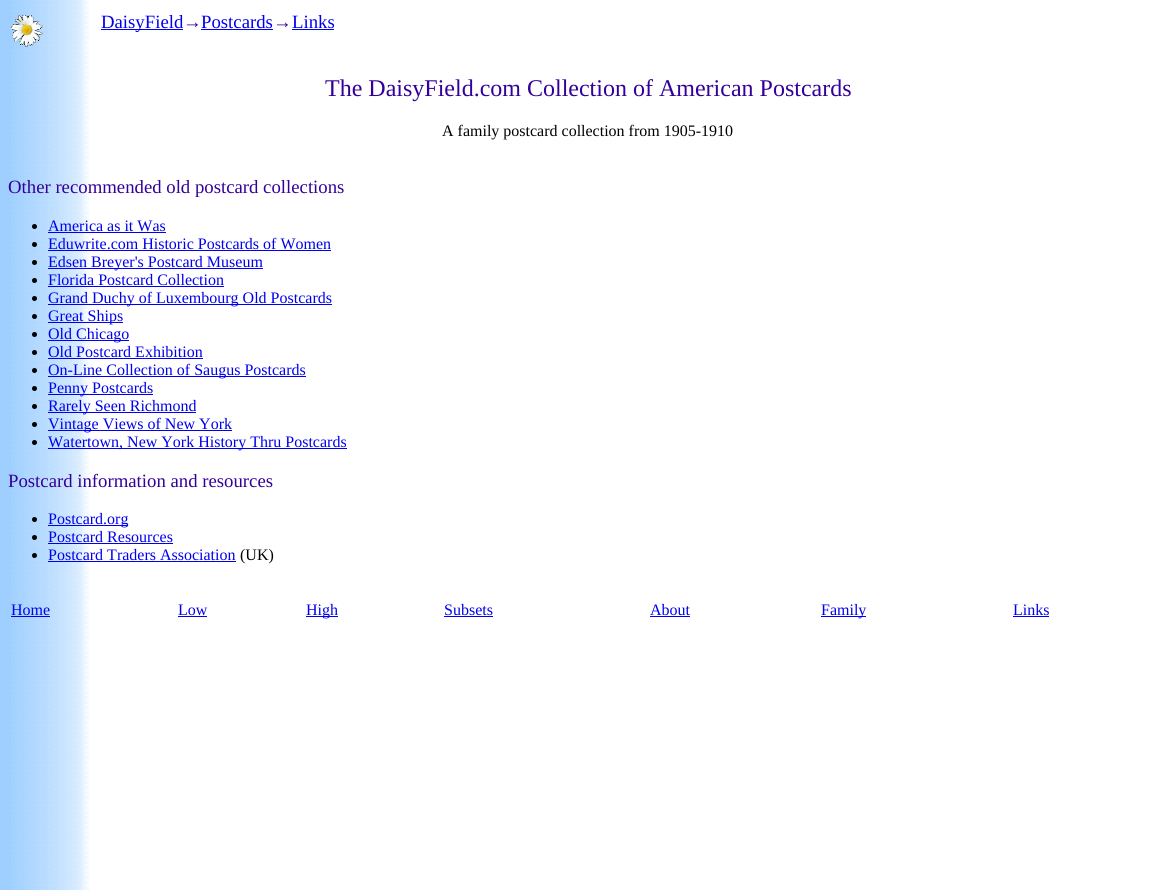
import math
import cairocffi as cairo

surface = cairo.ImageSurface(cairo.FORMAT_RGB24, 1176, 890)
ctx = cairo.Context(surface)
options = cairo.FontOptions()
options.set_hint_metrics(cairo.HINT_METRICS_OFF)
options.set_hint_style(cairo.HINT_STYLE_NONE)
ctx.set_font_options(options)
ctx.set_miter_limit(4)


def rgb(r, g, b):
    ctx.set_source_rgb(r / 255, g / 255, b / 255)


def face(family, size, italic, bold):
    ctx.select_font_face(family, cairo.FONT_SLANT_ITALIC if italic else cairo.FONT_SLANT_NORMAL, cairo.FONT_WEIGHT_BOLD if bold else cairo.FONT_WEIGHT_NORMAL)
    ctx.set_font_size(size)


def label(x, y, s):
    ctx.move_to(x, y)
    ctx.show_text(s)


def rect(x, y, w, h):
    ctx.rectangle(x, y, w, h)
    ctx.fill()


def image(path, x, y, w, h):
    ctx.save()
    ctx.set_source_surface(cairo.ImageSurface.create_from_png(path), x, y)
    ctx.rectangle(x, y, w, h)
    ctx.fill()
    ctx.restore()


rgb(255, 255, 255)
ctx.paint()
image('image0.png', 0, 0, 90, 890)
image('image1.png', 11, 15, 32, 32)
rgb(0, 0, 238)
rect(101, 29, 82, 1)
face('Liberation Serif', 18.75, 0, 0)
label(101, 28, 'DaisyField')
rgb(51, 0, 153)
label(183, 28, '→')
rgb(0, 0, 238)
label(201, 28, 'Postcards')
rect(201, 29, 72, 1)
rgb(51, 0, 153)
label(273, 28, '→')
rgb(0, 0, 238)
label(292, 28, 'Links')
rect(292, 29, 42, 1)
face('Liberation Serif', 24, 0, 0)
rgb(51, 0, 153)
label(325, 96, 'The DaisyField.com Collection of American Postcards')
face('Liberation Serif', 16, 0, 0)
rgb(0, 0, 0)
label(442, 136, 'A family postcard collection from 1905-1910')
face('Liberation Serif', 18.75, 0, 0)
rgb(51, 0, 153)
label(8, 193, 'Other recommended old postcard collections')
rgb(0, 0, 0)
ctx.new_path()
ctx.arc(34.5, 226.5, 2.5, 0, 2 * math.pi)
ctx.fill()
face('Liberation Serif', 16, 0, 0)
rgb(0, 0, 238)
label(48, 231, 'America as it Was')
rect(48, 232, 118, 1)
rgb(0, 0, 0)
ctx.new_path()
ctx.arc(34.5, 244.5, 2.5, 0, 2 * math.pi)
ctx.fill()
rgb(0, 0, 238)
label(48, 249, 'Eduwrite.com Historic Postcards of Women')
rect(48, 250, 283, 1)
rgb(0, 0, 0)
ctx.new_path()
ctx.arc(34.5, 262.5, 2.5, 0, 2 * math.pi)
ctx.fill()
rgb(0, 0, 238)
rect(48, 268, 215, 1)
label(48, 267, 'Edsen Breyer\'s Postcard Museum')
rgb(0, 0, 0)
ctx.new_path()
ctx.arc(34.5, 280.5, 2.5, 0, 2 * math.pi)
ctx.fill()
rgb(0, 0, 238)
label(48, 285, 'Florida Postcard Collection')
rect(48, 286, 176, 1)
rgb(0, 0, 0)
ctx.new_path()
ctx.arc(34.5, 298.5, 2.5, 0, 2 * math.pi)
ctx.fill()
rgb(0, 0, 238)
rect(48, 304, 284, 1)
label(48, 303, 'Grand Duchy of Luxembourg Old Postcards')
rgb(0, 0, 0)
ctx.new_path()
ctx.arc(34.5, 316.5, 2.5, 0, 2 * math.pi)
ctx.fill()
rgb(0, 0, 238)
rect(48, 322, 75, 1)
label(48, 321, 'Great Ships')
rgb(0, 0, 0)
ctx.new_path()
ctx.arc(34.5, 334.5, 2.5, 0, 2 * math.pi)
ctx.fill()
rgb(0, 0, 238)
rect(48, 340, 81, 1)
label(48, 339, 'Old Chicago')
rgb(0, 0, 0)
ctx.new_path()
ctx.arc(34.5, 352.5, 2.5, 0, 2 * math.pi)
ctx.fill()
rgb(0, 0, 238)
label(48, 357, 'Old Postcard Exhibition')
rect(48, 358, 155, 1)
rgb(0, 0, 0)
ctx.new_path()
ctx.arc(34.5, 370.5, 2.5, 0, 2 * math.pi)
ctx.fill()
rgb(0, 0, 238)
rect(48, 376, 258, 1)
label(48, 375, 'On-Line Collection of Saugus Postcards')
rgb(0, 0, 0)
ctx.new_path()
ctx.arc(34.5, 388.5, 2.5, 0, 2 * math.pi)
ctx.fill()
rgb(0, 0, 238)
rect(48, 394, 105, 1)
label(48, 393, 'Penny Postcards')
rgb(0, 0, 0)
ctx.new_path()
ctx.arc(34.5, 406.5, 2.5, 0, 2 * math.pi)
ctx.fill()
rgb(0, 0, 238)
rect(48, 412, 148, 1)
label(48, 411, 'Rarely Seen Richmond')
rgb(0, 0, 0)
ctx.new_path()
ctx.arc(34.5, 424.5, 2.5, 0, 2 * math.pi)
ctx.fill()
rgb(0, 0, 238)
rect(48, 430, 184, 1)
label(48, 429, 'Vintage Views of New York')
rgb(0, 0, 0)
ctx.new_path()
ctx.arc(34.5, 442.5, 2.5, 0, 2 * math.pi)
ctx.fill()
rgb(0, 0, 238)
rect(48, 448, 299, 1)
label(48, 447, 'Watertown, New York History Thru Postcards')
face('Liberation Serif', 18.75, 0, 0)
rgb(51, 0, 153)
label(8, 487, 'Postcard information and resources')
rgb(0, 0, 0)
ctx.new_path()
ctx.arc(34.5, 519.5, 2.5, 0, 2 * math.pi)
ctx.fill()
rgb(0, 0, 238)
rect(48, 525, 80, 1)
face('Liberation Serif', 16, 0, 0)
label(48, 524, 'Postcard.org')
rgb(0, 0, 0)
ctx.new_path()
ctx.arc(34.5, 537.5, 2.5, 0, 2 * math.pi)
ctx.fill()
rgb(0, 0, 238)
label(48, 542, 'Postcard Resources')
rect(48, 543, 125, 1)
rgb(0, 0, 0)
ctx.new_path()
ctx.arc(34.5, 555.5, 2.5, 0, 2 * math.pi)
ctx.fill()
rgb(0, 0, 238)
label(48, 560, 'Postcard Traders Association')
rect(48, 561, 188, 1)
rgb(0, 0, 0)
label(240, 560, '(UK)')
rgb(0, 0, 238)
label(11, 615, 'Home')
rect(11, 616, 39, 1)
label(178, 615, 'Low')
rect(178, 616, 29, 1)
rect(306, 616, 32, 1)
label(306, 615, 'High')
label(444, 615, 'Subsets')
rect(444, 616, 49, 1)
label(650, 615, 'About')
rect(650, 616, 40, 1)
rect(821, 616, 45, 1)
label(821, 615, 'Family')
label(1013, 615, 'Links')
rect(1013, 616, 36, 1)
surface.write_to_png('render.png')
